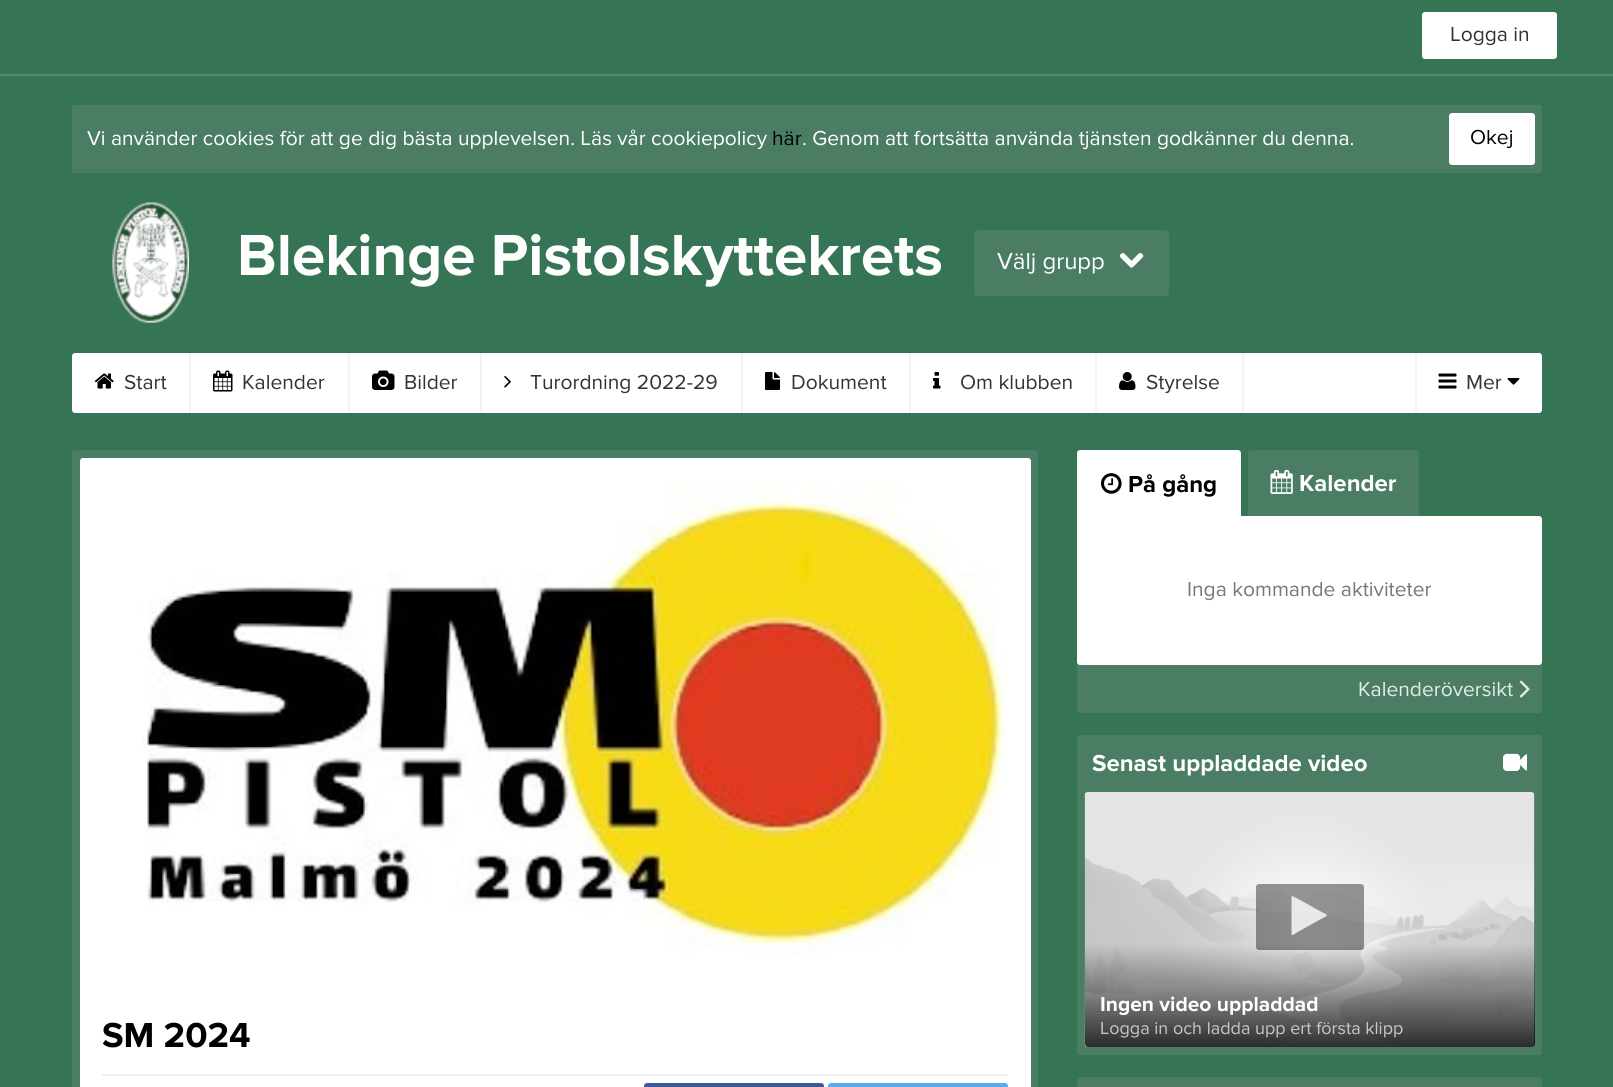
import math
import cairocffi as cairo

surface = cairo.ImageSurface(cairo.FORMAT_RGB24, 1613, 1087)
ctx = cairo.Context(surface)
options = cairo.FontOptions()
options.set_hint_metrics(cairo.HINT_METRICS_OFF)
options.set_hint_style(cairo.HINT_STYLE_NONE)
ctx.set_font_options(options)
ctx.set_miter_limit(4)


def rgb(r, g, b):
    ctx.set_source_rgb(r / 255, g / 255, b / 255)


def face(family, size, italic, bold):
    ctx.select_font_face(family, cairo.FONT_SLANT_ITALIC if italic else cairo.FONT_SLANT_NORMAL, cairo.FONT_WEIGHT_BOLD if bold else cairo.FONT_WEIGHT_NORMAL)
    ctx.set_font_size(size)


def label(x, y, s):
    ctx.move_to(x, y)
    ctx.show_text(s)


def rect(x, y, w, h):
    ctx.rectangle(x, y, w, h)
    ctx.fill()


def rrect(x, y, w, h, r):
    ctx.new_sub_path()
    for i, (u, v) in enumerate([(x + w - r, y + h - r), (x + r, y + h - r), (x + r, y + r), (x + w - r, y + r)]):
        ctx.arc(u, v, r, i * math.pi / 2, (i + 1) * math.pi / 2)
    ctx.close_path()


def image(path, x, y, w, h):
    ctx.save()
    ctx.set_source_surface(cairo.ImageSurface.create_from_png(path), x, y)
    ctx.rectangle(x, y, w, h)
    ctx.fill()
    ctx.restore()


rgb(53, 117, 86)
ctx.paint()
rgb(83, 138, 111)
rect(0, 74, 1613, 2)
rgb(255, 255, 255)
rrect(1422, 12, 135, 47, 3)
ctx.fill()
face('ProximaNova', 21, 0, 0)
rgb(51, 51, 51)
label(1450, 41, 'Logga in')
rgb(74, 125, 100)
rrect(72, 105, 1470, 68, 3)
ctx.fill()
rgb(255, 255, 255)
label(87, 145, 'Vi använder cookies för att ge dig bästa upplevelsen. Läs vår cookiepolicy')
rgb(0, 0, 0)
label(772, 145, 'här')
rgb(255, 255, 255)
label(802, 145, '. Genom att fortsätta använda tjänsten godkänner du denna.')
rrect(1449, 113, 86, 52, 3)
ctx.fill()
rgb(0, 0, 0)
label(1470, 144, 'Okej')
image('image0.png', 112, 202, 77, 121)
face('ProximaNova', 60, 0, 1)
rgb(255, 255, 255)
label(237, 275, 'Blekinge Pistolskyttekrets')
rgb(74, 125, 100)
rrect(974, 230, 195, 66, 3)
ctx.fill()
face('ProximaNova', 24, 0, 0)
rgb(255, 255, 255)
label(997, 269, 'Välj grupp')
image('image1.png', 1119, 252, 25, 16)
rrect(72, 353, 1470, 60, 3)
ctx.fill()
rgb(243, 243, 243)
rect(189, 353, 2, 60)
image('image2.png', 94, 373, 20, 16)
face('ProximaNova', 21, 0, 0)
rgb(51, 51, 51)
label(124, 389, 'Start')
rgb(243, 243, 243)
rect(348, 353, 2, 60)
image('image3.png', 213, 370, 20, 22)
rgb(51, 51, 51)
label(242, 389, 'Kalender')
rgb(243, 243, 243)
rect(480, 353, 2, 60)
image('image4.png', 372, 370, 23, 20)
rgb(51, 51, 51)
label(404, 389, 'Bilder')
rgb(243, 243, 243)
rect(741, 353, 2, 60)
image('image5.png', 504, 376, 7, 12)
rgb(51, 51, 51)
label(530, 389, 'Turordning 2022-29')
rgb(243, 243, 243)
rect(909, 353, 2, 60)
image('image6.png', 765, 372, 15, 18)
rgb(51, 51, 51)
label(791, 389, 'Dokument')
rgb(243, 243, 243)
rect(1095, 353, 2, 60)
image('image7.png', 933, 372, 8, 17)
rgb(51, 51, 51)
label(960, 389, 'Om klubben')
rgb(243, 243, 243)
rect(1242, 353, 2, 60)
image('image8.png', 1119, 372, 17, 18)
rgb(51, 51, 51)
label(1146, 389, 'Styrelse')
rgb(243, 243, 243)
rect(1415, 353, 2, 60)
image('image9.png', 1438, 373, 19, 16)
rgb(51, 51, 51)
label(1466, 389, 'Mer')
image('image10.png', 1507, 378, 13, 7)
rgb(74, 125, 101)
rrect(72, 450, 966, 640, 3)
ctx.fill()
rgb(255, 255, 255)
rrect(80, 458, 951, 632, 3)
ctx.fill()
image('image11.png', 142, 480, 866, 474)
face('ProximaNova', 36, 0, 1)
rgb(0, 0, 0)
label(102, 1047, 'SM 2024')
rgb(239, 239, 239)
rect(102, 1074, 906, 2)
rgb(59, 89, 152)
rrect(644, 1083, 180, 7, 3)
ctx.fill()
rgb(85, 172, 238)
rrect(828, 1083, 180, 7, 3)
ctx.fill()
rgb(255, 255, 255)
ctx.new_path()
ctx.move_to(1080, 450)
ctx.line_to(1238, 450)
ctx.curve_to(1239.5, 450, 1241, 451.5, 1241, 453)
ctx.line_to(1241, 516)
ctx.line_to(1077, 516)
ctx.line_to(1077, 453)
ctx.curve_to(1077, 451.5, 1078.5, 450, 1080, 450)
ctx.close_path()
ctx.fill()
image('image12.png', 1101, 473, 21, 21)
face('ProximaNova', 24, 0, 1)
rgb(0, 0, 0)
label(1128, 492, 'På gång')
rgb(74, 125, 100)
rrect(1077, 516, 465, 197, 3)
ctx.fill()
rgb(255, 255, 255)
rrect(1077, 516, 465, 149, 3)
ctx.fill()
rect(1077, 516, 3, 3)
rgb(74, 125, 100)
ctx.new_path()
ctx.move_to(1251, 450)
ctx.line_to(1416, 450)
ctx.curve_to(1417.5, 450, 1419, 451.5, 1419, 453)
ctx.line_to(1419, 516)
ctx.line_to(1248, 516)
ctx.line_to(1248, 453)
ctx.curve_to(1248, 451.5, 1249.5, 450, 1251, 450)
ctx.close_path()
ctx.fill()
image('image13.png', 1270, 469, 23, 25)
rgb(255, 255, 255)
label(1299, 491, 'Kalender')
face('ProximaNova', 21, 0, 0)
rgb(119, 119, 119)
label(1187, 596, 'Inga kommande aktiviteter')
rgb(228, 236, 232)
label(1358, 696, 'Kalenderöversikt')
image('image14.png', 1519, 680, 11, 18)
rgb(74, 125, 100)
rrect(1077, 735, 465, 320, 3)
ctx.fill()
face('ProximaNova', 24, 0, 1)
rgb(255, 255, 255)
label(1092, 771, 'Senast uppladdade video')
image('image15.png', 1503, 753, 24, 18)
image('image16.png', 1084, 792, 451, 255)
ctx.set_source_rgba(0, 0, 0, 0.4)
rrect(1256, 884, 108, 66, 3)
ctx.fill()
ctx.set_source_rgba(1, 1, 1, 0.8)
ctx.new_path()
ctx.move_to(1326.5, 916)
ctx.line_to(1298.5, 931.5)
ctx.curve_to(1298, 932, 1292.5, 936, 1291.5, 934.5)
ctx.line_to(1291.5, 896.5)
ctx.line_to(1292, 896)
ctx.curve_to(1293, 896, 1313, 907, 1315, 908.5)
ctx.line_to(1326.5, 914.5)
ctx.line_to(1327, 915.5)
ctx.close_path()
ctx.fill()
gradient = cairo.LinearGradient(1310, 918, 1310, 1047)
gradient.add_color_stop_rgba(0.2, 0, 0, 0, 0)
gradient.add_color_stop_rgba(1, 0, 0, 0, 0.8)
ctx.set_source(gradient)
ctx.new_path()
ctx.move_to(1085, 918)
ctx.line_to(1535, 918)
ctx.line_to(1535, 1044)
ctx.curve_to(1535, 1045.5, 1533.5, 1047, 1532, 1047)
ctx.line_to(1088, 1047)
ctx.curve_to(1086.5, 1047, 1085, 1045.5, 1085, 1044)
ctx.close_path()
ctx.fill()
face('ProximaNova', 21, 0, 1)
rgb(255, 255, 255)
label(1100, 1011, 'Ingen video uppladdad')
face('ProximaNova', 18, 0, 0)
rgb(200, 200, 200)
label(1100, 1034, 'Logga in och ladda upp ert första klipp')
rgb(74, 125, 100)
rrect(1077, 1077, 465, 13, 3)
ctx.fill()
surface.write_to_png('render.png')
